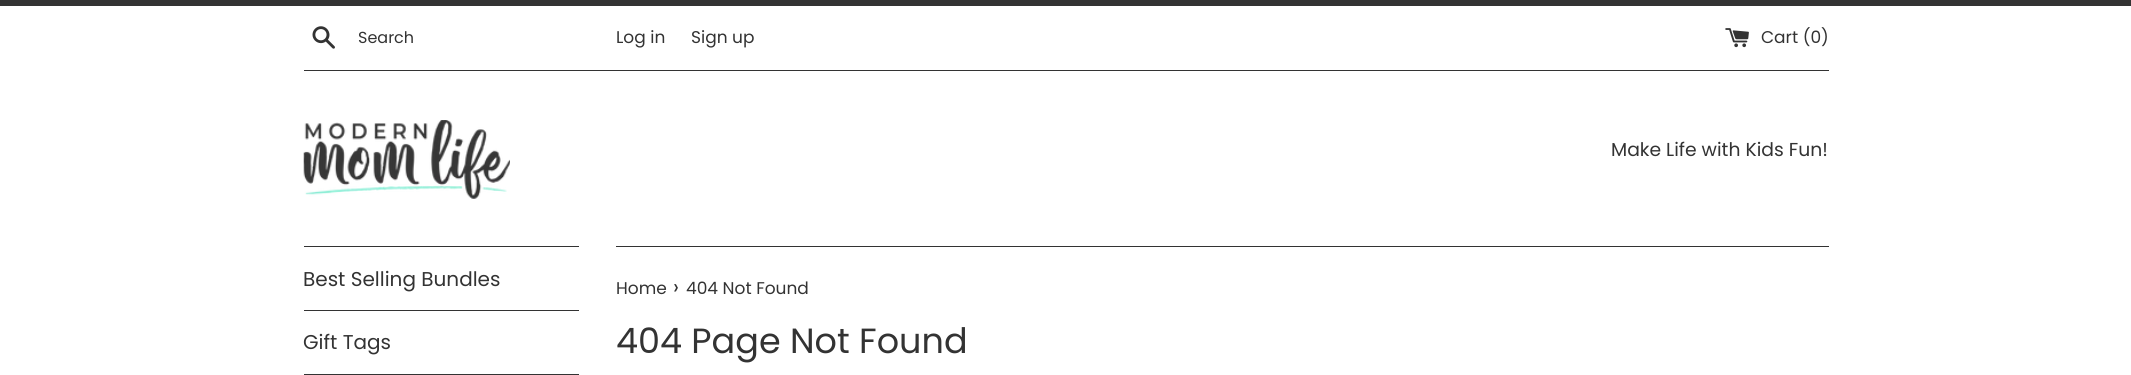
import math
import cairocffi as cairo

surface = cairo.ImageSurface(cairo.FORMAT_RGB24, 2131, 375)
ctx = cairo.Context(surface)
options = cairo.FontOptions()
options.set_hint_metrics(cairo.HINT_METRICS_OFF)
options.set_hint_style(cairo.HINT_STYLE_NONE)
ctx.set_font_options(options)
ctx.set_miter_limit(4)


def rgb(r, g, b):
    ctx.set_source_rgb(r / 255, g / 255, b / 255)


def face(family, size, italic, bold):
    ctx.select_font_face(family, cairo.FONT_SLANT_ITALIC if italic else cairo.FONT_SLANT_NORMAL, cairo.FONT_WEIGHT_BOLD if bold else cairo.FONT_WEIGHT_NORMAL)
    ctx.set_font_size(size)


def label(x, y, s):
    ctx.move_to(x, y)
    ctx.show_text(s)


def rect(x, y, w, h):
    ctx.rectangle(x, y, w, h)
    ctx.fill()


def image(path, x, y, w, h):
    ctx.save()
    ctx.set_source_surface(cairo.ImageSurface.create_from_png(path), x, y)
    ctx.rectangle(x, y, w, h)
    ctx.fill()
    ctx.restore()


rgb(255, 255, 255)
ctx.paint()
rgb(51, 51, 51)
rect(0, 0, 2131, 6)
image('image0.png', 312, 26, 23, 23)
face('Poppins', 16, 0, 0)
label(358, 43, 'Search')
face('Poppins', 17, 0, 0)
label(616, 43, 'Log in')
label(691, 43, 'Sign up')
image('image1.png', 1725, 28, 24, 20)
label(1761, 43, 'Cart (0)')
rect(304, 70, 1525, 1)
image('image2.png', 303, 120, 207, 79)
face('Poppins', 18.75, 0, 0)
label(1611, 156, 'Make Life with Kids Fun!')
rect(304, 246, 275, 1)
rect(304, 310, 275, 1)
face('Poppins', 20, 0, 0)
label(303, 286, 'Best Selling Bundles')
rect(304, 374, 275, 1)
label(303, 349, 'Gift Tags')
rect(616, 246, 1213, 1)
face('Poppins', 17, 0, 0)
label(616, 294, 'Home')
face('Poppins', 21, 0, 0)
label(673, 294, '›')
face('Poppins', 17, 0, 0)
label(686, 294, '404 Not Found')
face('Poppins', 35, 0, 0)
label(616, 353, '404 Page Not Found')
surface.write_to_png('render.png')
